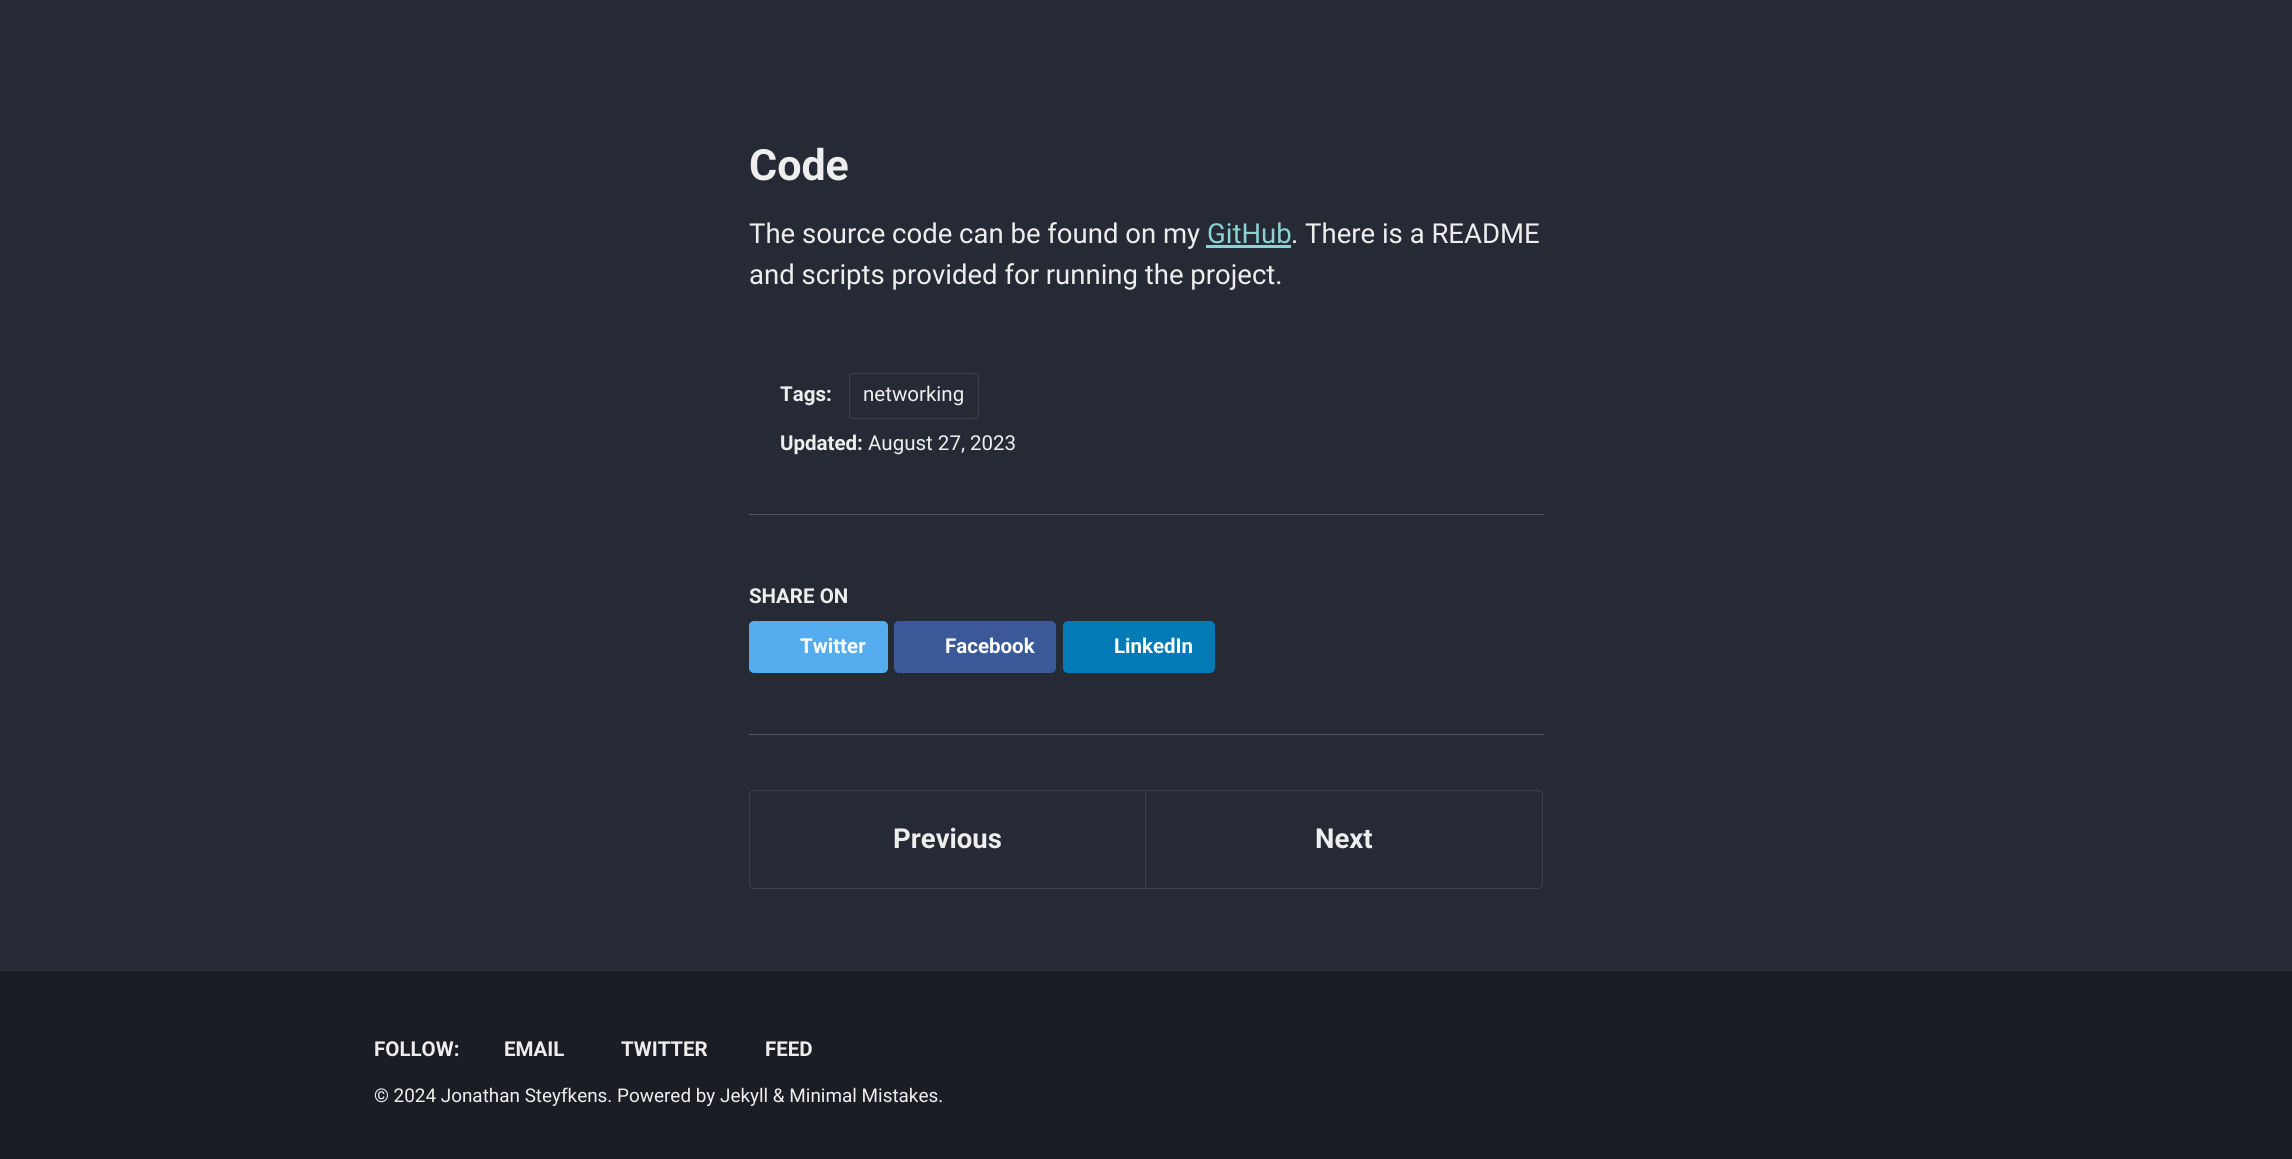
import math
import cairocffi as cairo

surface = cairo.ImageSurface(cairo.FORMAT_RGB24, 2292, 1159)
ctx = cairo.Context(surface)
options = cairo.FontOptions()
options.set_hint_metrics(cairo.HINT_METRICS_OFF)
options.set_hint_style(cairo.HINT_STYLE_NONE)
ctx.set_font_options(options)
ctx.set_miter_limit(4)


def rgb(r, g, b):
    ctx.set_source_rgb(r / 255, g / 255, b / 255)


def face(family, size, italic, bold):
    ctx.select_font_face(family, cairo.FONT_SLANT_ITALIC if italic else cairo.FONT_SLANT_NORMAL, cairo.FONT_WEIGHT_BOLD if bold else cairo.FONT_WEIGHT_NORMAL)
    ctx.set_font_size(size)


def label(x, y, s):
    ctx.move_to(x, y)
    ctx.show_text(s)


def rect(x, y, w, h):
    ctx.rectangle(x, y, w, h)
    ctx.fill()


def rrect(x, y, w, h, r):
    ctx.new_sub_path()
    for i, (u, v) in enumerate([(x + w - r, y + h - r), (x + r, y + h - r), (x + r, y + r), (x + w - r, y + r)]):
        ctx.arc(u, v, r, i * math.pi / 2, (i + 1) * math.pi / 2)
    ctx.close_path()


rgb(37, 42, 52)
ctx.paint()
face('Roboto', 43, 0, 1)
rgb(238, 238, 238)
label(749, 180, 'Code')
face('Roboto', 27.5, 0, 0)
label(749, 243, 'The source code can be found on my')
rgb(140, 210, 213)
label(1207, 243, 'GitHub')
rect(1206, 245, 85, 3)
rgb(238, 238, 238)
label(1291, 243, '. There is a README')
label(749, 284, 'and scripts provided for running the project.')
face('Roboto', 20.5, 0, 1)
label(780, 401, 'Tags:')
rrect(849.5, 373.5, 129, 45, 4.5)
rgb(61, 64, 70)
ctx.set_line_width(1)
ctx.stroke()
face('Roboto', 20.5, 0, 0)
rgb(238, 238, 238)
label(863, 401, 'networking')
face('Roboto', 20.5, 0, 1)
label(780, 450, 'Updated:')
face('Roboto', 20.5, 0, 0)
label(868, 450, 'August 27, 2023')
rgb(81, 85, 93)
rect(749, 514, 795, 1)
face('Roboto', 20.5, 0, 1)
rgb(238, 238, 238)
label(749, 603, 'SHARE ON')
rgb(85, 172, 238)
rrect(749, 621, 139, 52, 5)
ctx.fill()
rgb(255, 255, 255)
label(800, 653, 'Twitter')
rgb(59, 89, 152)
rrect(894, 621, 162, 52, 5)
ctx.fill()
rgb(255, 255, 255)
label(945, 653, 'Facebook')
rgb(0, 123, 182)
rrect(1063, 621, 152, 52, 5)
ctx.fill()
rgb(255, 255, 255)
label(1114, 653, 'LinkedIn')
rgb(81, 85, 93)
rect(749, 734, 795, 1)
ctx.new_path()
ctx.move_to(754, 790.5)
ctx.line_to(1145.5, 790.5)
ctx.line_to(1145.5, 888.5)
ctx.line_to(754, 888.5)
ctx.curve_to(751.5, 888.5, 749.5, 886.5, 749.5, 884)
ctx.line_to(749.5, 795)
ctx.curve_to(749.5, 792.5, 751.5, 790.5, 754, 790.5)
ctx.close_path()
rgb(61, 64, 70)
ctx.stroke()
face('Roboto', 27.5, 0, 1)
rgb(238, 238, 238)
label(893, 848, 'Previous')
ctx.new_path()
ctx.move_to(1145.5, 790.5)
ctx.line_to(1538, 790.5)
ctx.curve_to(1540.5, 790.5, 1542.5, 792.5, 1542.5, 795)
ctx.line_to(1542.5, 884)
ctx.curve_to(1542.5, 886.5, 1540.5, 888.5, 1538, 888.5)
ctx.line_to(1145.5, 888.5)
ctx.close_path()
rgb(61, 64, 70)
ctx.stroke()
rgb(238, 238, 238)
label(1315, 848, 'Next')
rgb(26, 29, 36)
rect(0, 971, 2292, 188)
face('Roboto', 20.5, 0, 1)
rgb(238, 238, 238)
label(374, 1056, 'FOLLOW:')
label(504, 1056, 'EMAIL')
label(621, 1056, 'TWITTER')
label(765, 1056, 'FEED')
face('Roboto', 18.9, 0, 0)
label(374, 1102, '© 2024 Jonathan Steyfkens. Powered by Jekyll & Minimal Mistakes.')
surface.write_to_png('render.png')
